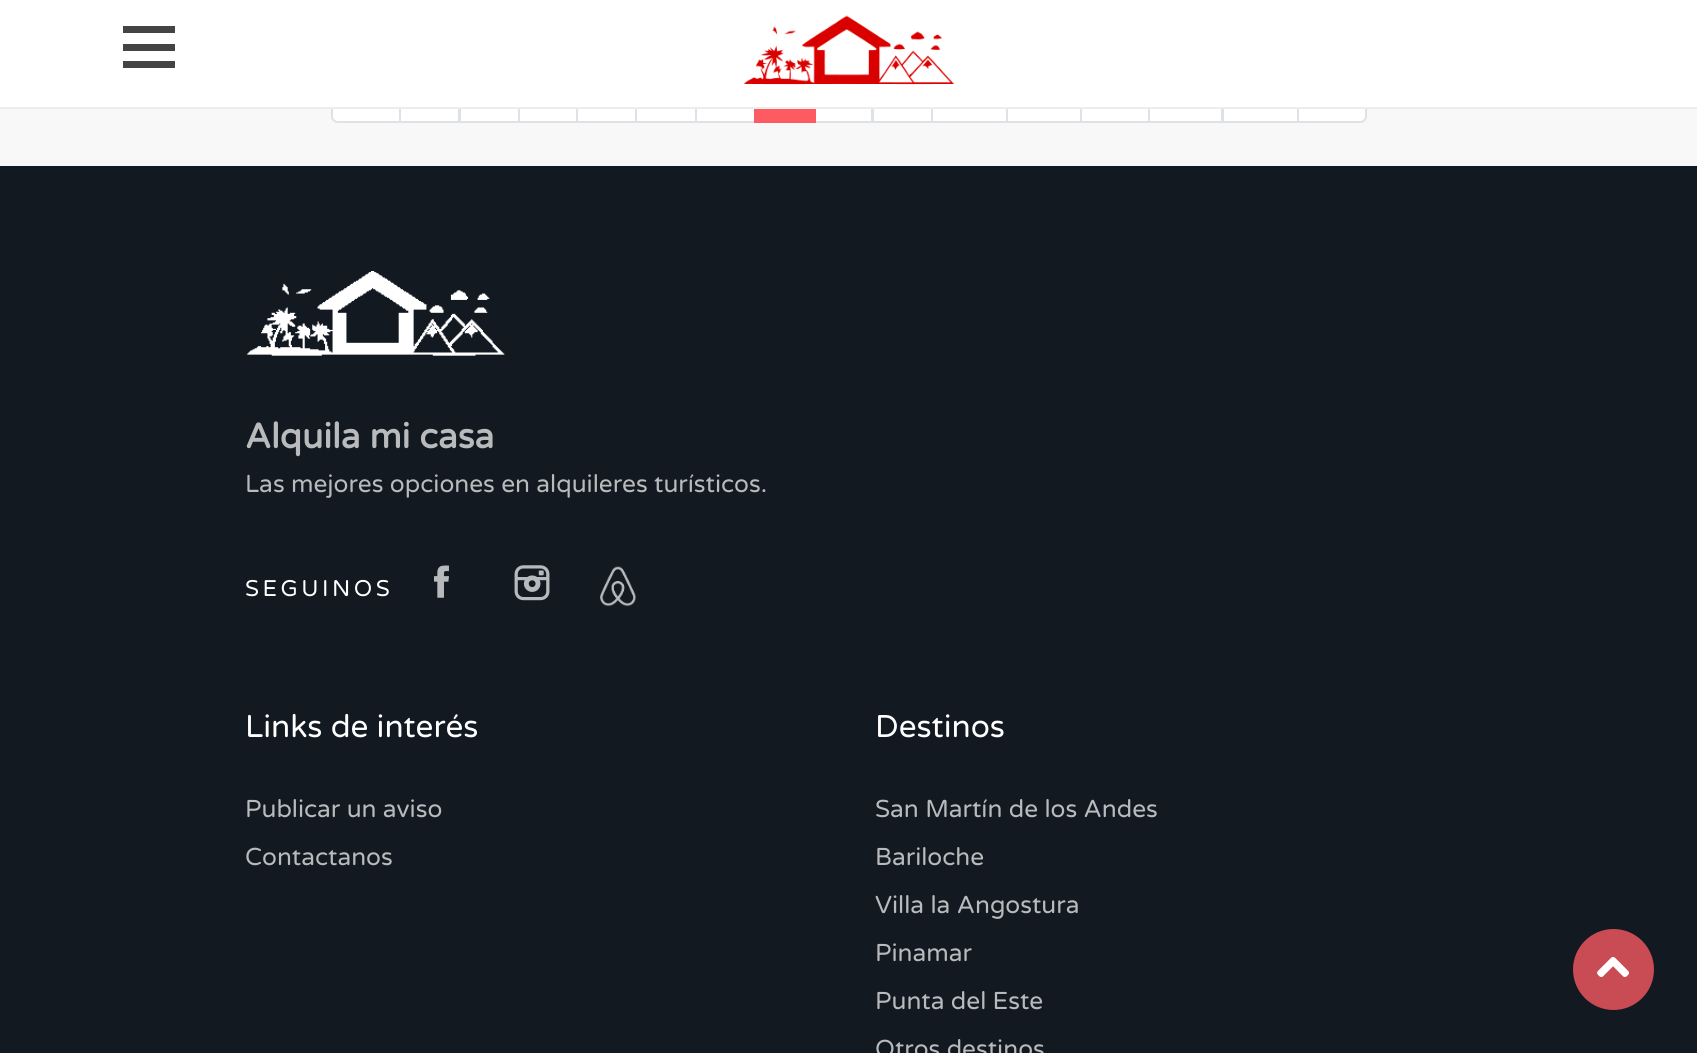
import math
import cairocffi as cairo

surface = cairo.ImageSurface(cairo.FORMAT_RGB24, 1697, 1053)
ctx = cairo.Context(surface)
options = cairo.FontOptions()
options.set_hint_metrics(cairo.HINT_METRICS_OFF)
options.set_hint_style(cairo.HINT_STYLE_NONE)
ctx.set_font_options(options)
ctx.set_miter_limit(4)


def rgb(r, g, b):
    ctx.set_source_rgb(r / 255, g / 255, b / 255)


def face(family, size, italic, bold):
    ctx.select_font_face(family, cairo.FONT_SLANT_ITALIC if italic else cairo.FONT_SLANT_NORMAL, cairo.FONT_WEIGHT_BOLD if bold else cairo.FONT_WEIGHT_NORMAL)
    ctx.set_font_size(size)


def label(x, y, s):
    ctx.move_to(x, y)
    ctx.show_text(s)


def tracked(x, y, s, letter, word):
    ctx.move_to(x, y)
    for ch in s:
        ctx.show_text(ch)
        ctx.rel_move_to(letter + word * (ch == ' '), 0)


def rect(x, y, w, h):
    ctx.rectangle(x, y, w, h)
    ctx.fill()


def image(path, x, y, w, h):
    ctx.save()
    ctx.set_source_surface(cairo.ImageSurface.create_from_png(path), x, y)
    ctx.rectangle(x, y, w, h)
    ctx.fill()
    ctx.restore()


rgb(248, 248, 248)
ctx.paint()
rgb(255, 255, 255)
ctx.new_path()
ctx.move_to(338, 62)
ctx.line_to(400, 62)
ctx.line_to(400, 122)
ctx.line_to(338, 122)
ctx.curve_to(334.5, 122, 332, 119.5, 332, 116)
ctx.line_to(332, 68)
ctx.curve_to(332, 64.5, 334.5, 62, 338, 62)
ctx.close_path()
ctx.fill_preserve()
rgb(222, 226, 230)
ctx.stroke()
rgb(255, 255, 255)
rect(401, 109, 57, 12)
ctx.rectangle(400, 62, 59, 60)
rgb(222, 226, 230)
ctx.stroke()
rgb(255, 255, 255)
rect(461, 109, 57, 12)
ctx.rectangle(460, 62, 59, 60)
rgb(222, 226, 230)
ctx.stroke()
rgb(255, 255, 255)
rect(520, 109, 56, 12)
ctx.rectangle(519, 62, 58, 60)
rgb(222, 226, 230)
ctx.stroke()
rgb(255, 255, 255)
rect(578, 109, 57, 12)
ctx.rectangle(577, 62, 59, 60)
rgb(222, 226, 230)
ctx.stroke()
rgb(255, 255, 255)
rect(637, 109, 58, 12)
ctx.rectangle(636, 62, 60, 60)
rgb(222, 226, 230)
ctx.stroke()
rgb(255, 255, 255)
rect(697, 109, 57, 12)
ctx.rectangle(696, 62, 59, 60)
rgb(222, 226, 230)
ctx.stroke()
rgb(255, 255, 255)
rect(816, 109, 55, 12)
ctx.rectangle(815, 62, 57, 60)
rgb(222, 226, 230)
ctx.stroke()
rgb(255, 255, 255)
rect(874, 109, 57, 12)
ctx.rectangle(873, 62, 59, 60)
rgb(222, 226, 230)
ctx.stroke()
rgb(255, 255, 255)
rect(933, 109, 73, 12)
ctx.rectangle(932, 62, 75, 60)
rgb(222, 226, 230)
ctx.stroke()
rgb(255, 255, 255)
rect(1008, 109, 72, 12)
ctx.rectangle(1007, 62, 74, 60)
rgb(222, 226, 230)
ctx.stroke()
rgb(255, 255, 255)
rect(1082, 109, 66, 12)
ctx.rectangle(1081, 62, 68, 60)
rgb(222, 226, 230)
ctx.stroke()
rgb(255, 255, 255)
rect(1150, 109, 71, 12)
ctx.rectangle(1149, 62, 73, 60)
rgb(222, 226, 230)
ctx.stroke()
rgb(255, 255, 255)
rect(1224, 109, 73, 12)
ctx.rectangle(1223, 62, 75, 60)
rgb(222, 226, 230)
ctx.stroke()
rgb(255, 255, 255)
ctx.new_path()
ctx.move_to(1298, 62)
ctx.line_to(1360, 62)
ctx.curve_to(1363.5, 62, 1366, 64.5, 1366, 68)
ctx.line_to(1366, 116)
ctx.curve_to(1366, 119.5, 1363.5, 122, 1360, 122)
ctx.line_to(1298, 122)
ctx.close_path()
ctx.fill_preserve()
rgb(222, 226, 230)
ctx.stroke()
rgb(255, 255, 255)
rect(0, 0, 1697, 107)
rgb(237, 237, 237)
rect(0, 107, 1697, 2)
rgb(68, 68, 68)
rect(123, 44, 52, 7)
rect(123, 26, 52, 7)
rect(123, 61, 52, 7)
image('image0.png', 743, 15, 211, 70)
rgb(252, 91, 98)
rect(754, 109, 62, 14)
rgb(18, 25, 33)
rect(0, 166, 1697, 887)
image('image1.png', 247, 271, 258, 85)
face('Varela Round', 35, 0, 1)
rgb(184, 186, 188)
label(245, 448, 'Alquila mi casa')
face('Varela Round', 24.5, 0, 0)
label(245, 492, 'Las mejores opciones en alquileres turísticos.')
face('Varela Round', 22.75, 0, 0)
rgb(255, 255, 255)
tracked(245, 596, 'SEGUINOS', 3.5, 0)
image('image2.png', 434, 565, 15, 33)
image('image3.png', 514, 565, 36, 36)
image('image4.png', 600, 566, 36, 41)
face('Varela Round', 31.5, 0, 0)
label(245, 737, 'Links de interés')
face('Varela Round', 24.5, 0, 0)
rgb(184, 186, 188)
label(245, 817, 'Publicar un aviso')
label(245, 865, 'Contactanos')
face('Varela Round', 31.5, 0, 0)
rgb(255, 255, 255)
label(875, 737, 'Destinos')
face('Varela Round', 24.5, 0, 0)
rgb(184, 186, 188)
label(875, 817, 'San Martín de los Andes')
label(875, 865, 'Bariloche')
label(875, 913, 'Villa la Angostura')
label(875, 961, 'Pinamar')
label(875, 1009, 'Punta del Este')
label(875, 1057, 'Otros destinos')
rgb(201, 76, 84)
ctx.new_path()
ctx.arc(1613.5, 969.5, 40.5, 0, 2 * math.pi)
ctx.fill()
image('image5.png', 1597, 956, 32, 21)
surface.write_to_png('render.png')
